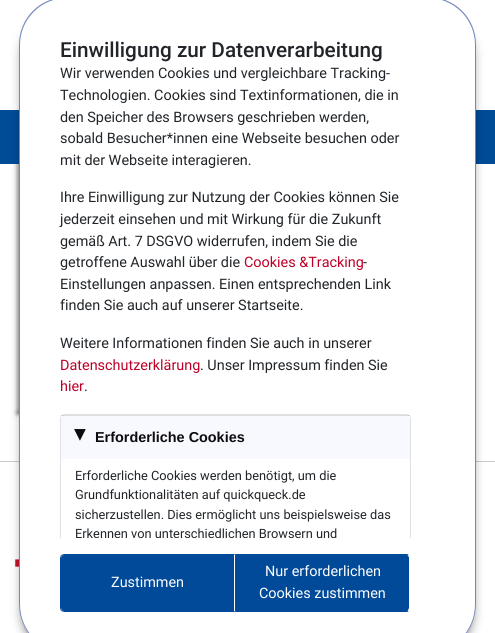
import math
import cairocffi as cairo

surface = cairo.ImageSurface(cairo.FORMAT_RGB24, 495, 633)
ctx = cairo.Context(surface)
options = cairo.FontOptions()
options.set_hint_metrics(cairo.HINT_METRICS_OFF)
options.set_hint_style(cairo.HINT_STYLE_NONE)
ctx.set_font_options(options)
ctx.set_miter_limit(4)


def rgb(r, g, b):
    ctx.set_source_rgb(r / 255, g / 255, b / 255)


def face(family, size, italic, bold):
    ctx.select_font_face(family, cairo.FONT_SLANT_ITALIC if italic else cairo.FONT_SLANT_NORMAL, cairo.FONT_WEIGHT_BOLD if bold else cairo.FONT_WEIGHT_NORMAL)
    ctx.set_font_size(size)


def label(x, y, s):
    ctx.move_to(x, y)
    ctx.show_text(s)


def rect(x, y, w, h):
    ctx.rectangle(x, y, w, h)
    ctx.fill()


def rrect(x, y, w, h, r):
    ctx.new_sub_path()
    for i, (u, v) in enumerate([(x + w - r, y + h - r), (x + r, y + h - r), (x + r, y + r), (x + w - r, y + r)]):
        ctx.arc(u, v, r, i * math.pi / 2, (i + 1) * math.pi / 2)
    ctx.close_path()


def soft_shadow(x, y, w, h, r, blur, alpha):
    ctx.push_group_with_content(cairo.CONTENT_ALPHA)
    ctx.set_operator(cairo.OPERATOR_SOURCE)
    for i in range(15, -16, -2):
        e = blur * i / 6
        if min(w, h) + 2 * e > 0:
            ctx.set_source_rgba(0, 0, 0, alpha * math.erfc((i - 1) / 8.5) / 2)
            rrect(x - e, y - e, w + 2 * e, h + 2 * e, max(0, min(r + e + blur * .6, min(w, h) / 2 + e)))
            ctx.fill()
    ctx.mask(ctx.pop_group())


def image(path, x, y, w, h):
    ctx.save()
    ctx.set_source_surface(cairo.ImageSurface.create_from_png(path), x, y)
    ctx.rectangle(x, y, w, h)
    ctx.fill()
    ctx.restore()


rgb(255, 255, 255)
ctx.paint()
rgb(128, 128, 128)
soft_shadow(18, 412, 449, 1, 0, 2.5, 1)
soft_shadow(18, -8, 1, 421, 0, 2.5, 1)
rgb(204, 204, 204)
rect(0, 461, 495, 1)
image('image0.png', 15, 559, 4, 8)
rgb(255, 255, 255)
rect(13, 0, 11, 110)
image('image1.png', 19, 34, 2, 11)
rgb(0, 75, 150)
rect(0, 110, 495, 54)
rgb(0, 0, 0)
soft_shadow(26, 14, 443, 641, 41, 6.5, 1)
rgb(255, 255, 255)
rrect(19, -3, 457, 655, 48)
ctx.fill()
rgb(117, 136, 190)
ctx.set_fill_rule(cairo.FILL_RULE_EVEN_ODD)
ctx.new_path()
ctx.move_to(67, -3)
ctx.line_to(428, -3)
ctx.curve_to(455, -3, 476, 18, 476, 45)
ctx.line_to(476, 604)
ctx.curve_to(476, 631, 455, 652, 428, 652)
ctx.line_to(67, 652)
ctx.curve_to(40, 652, 19, 631, 19, 604)
ctx.line_to(19, 45)
ctx.curve_to(19, 18, 40, -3, 67, -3)
ctx.close_path()
ctx.move_to(67, -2)
ctx.line_to(428, -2)
ctx.curve_to(454, -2, 475, 19, 475, 45)
ctx.line_to(475, 604)
ctx.curve_to(475, 631, 454, 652, 428, 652)
ctx.line_to(67, 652)
ctx.curve_to(41, 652, 20, 631, 20, 604)
ctx.line_to(20, 45)
ctx.curve_to(20, 19, 41, -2, 67, -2)
ctx.close_path()
ctx.fill()
face('Roboto Medium', 20.75, 0, 0)
rgb(33, 37, 41)
label(60, 57, 'Einwilligung zur Datenverarbeitung')
face('Roboto', 14.4, 0, 0)
label(60, 78, 'Wir verwenden Cookies und vergleichbare Tracking-')
label(60, 100, 'Technologien. Cookies sind Textinformationen, die in')
label(60, 122, 'den Speicher des Browsers geschrieben werden,')
label(60, 143, 'sobald Besucher*innen eine Webseite besuchen oder')
label(60, 165, 'mit der Webseite interagieren.')
label(60, 202, 'Ihre Einwilligung zur Nutzung der Cookies können Sie')
label(60, 224, 'jederzeit einsehen und mit Wirkung für die Zukunft')
label(60, 246, 'gemäß Art. 7 DSGVO widerrufen, indem Sie die')
label(60, 267, 'getroffene Auswahl über die')
rgb(189, 0, 40)
label(244, 267, 'Cookies &Tracking')
rgb(33, 37, 41)
label(363, 267, '-')
label(60, 289, 'Einstellungen anpassen. Einen entsprechenden Link')
label(60, 310, 'finden Sie auch auf unserer Startseite.')
label(60, 348, 'Weitere Informationen finden Sie auch in unserer')
rgb(189, 0, 40)
label(60, 370, 'Datenschutzerklärung')
rgb(33, 37, 41)
label(200, 370, '. Unser Impressum finden Sie')
rgb(189, 0, 40)
label(60, 391, 'hier')
rgb(33, 37, 41)
label(84, 391, '.')
ctx.save()
ctx.set_fill_rule(cairo.FILL_RULE_WINDING)
ctx.rectangle(60, 38, 375, 500)
ctx.clip()
rrect(60.5, 414.5, 350, 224, 4.5)
rgb(222, 226, 230)
ctx.set_line_width(1)
ctx.stroke()
ctx.restore()
ctx.set_source_rgba(0.133, 0.141, 0.149, 0.15)
rect(61, 415, 349, 1)
rgb(248, 248, 255)
rect(61, 416, 349, 43)
face('DejaVu Sans', 14.4, 0, 1)
rgb(12, 12, 13)
ctx.save()
ctx.translate(76, 429)
ctx.rotate(90 * math.pi / 180)
label(0, 0, '▶')
ctx.restore()
face('Liberation Sans', 14.4, 0, 1)
label(95, 442, 'Erforderliche Cookies')
face('Roboto', 12.8, 0, 0)
rgb(33, 37, 41)
label(75, 480, 'Erforderliche Cookies werden benötigt, um die')
label(75, 499, 'Grundfunktionalitäten auf quickqueck.de')
label(75, 519, 'sicherzustellen. Dies ermöglicht uns beispielsweise das')
ctx.save()
ctx.set_fill_rule(cairo.FILL_RULE_WINDING)
ctx.rectangle(60, 38, 375, 500)
ctx.clip()
label(75, 538, 'Erkennen von unterschiedlichen Browsern und')
ctx.restore()
rgb(0, 74, 153)
ctx.new_path()
ctx.move_to(64, 555)
ctx.line_to(234, 555)
ctx.line_to(234, 611)
ctx.line_to(64, 611)
ctx.curve_to(62.5, 611, 61, 609.5, 61, 608)
ctx.line_to(61, 558)
ctx.curve_to(61, 556.5, 62.5, 555, 64, 555)
ctx.close_path()
ctx.fill()
ctx.set_fill_rule(cairo.FILL_RULE_WINDING)
ctx.new_path()
ctx.move_to(64, 554)
ctx.line_to(61, 555)
ctx.line_to(62, 556)
ctx.line_to(64, 555)
ctx.line_to(234, 555)
ctx.line_to(236, 554)
ctx.close_path()
ctx.fill()
rgb(255, 255, 255)
ctx.new_path()
ctx.move_to(236, 554)
ctx.line_to(234, 555)
ctx.line_to(234, 611)
ctx.line_to(236, 612)
ctx.close_path()
ctx.fill()
rgb(0, 74, 153)
ctx.new_path()
ctx.move_to(236, 612)
ctx.line_to(234, 611)
ctx.line_to(64, 611)
ctx.line_to(62, 610)
ctx.line_to(61, 611)
ctx.line_to(64, 612)
ctx.close_path()
ctx.fill()
ctx.new_path()
ctx.move_to(60, 558)
ctx.line_to(60, 608)
ctx.line_to(61, 611)
ctx.line_to(62, 610)
ctx.line_to(61, 609)
ctx.line_to(61, 557)
ctx.line_to(62, 556)
ctx.line_to(61, 555)
ctx.close_path()
ctx.fill()
face('Roboto', 14.4, 0, 0)
rgb(255, 255, 255)
label(111, 587, 'Zustimmen')
rgb(0, 74, 153)
ctx.new_path()
ctx.move_to(236, 555)
ctx.line_to(407, 555)
ctx.curve_to(408, 555, 409, 556, 409, 558)
ctx.line_to(409, 608)
ctx.curve_to(409, 610, 408, 611, 407, 611)
ctx.line_to(236, 611)
ctx.close_path()
ctx.fill()
ctx.new_path()
ctx.move_to(235, 554)
ctx.line_to(236, 555)
ctx.line_to(407, 555)
ctx.line_to(408, 555)
ctx.line_to(409, 555)
ctx.line_to(407, 554)
ctx.close_path()
ctx.fill()
rgb(255, 255, 255)
ctx.new_path()
ctx.move_to(411, 608)
ctx.line_to(411, 557)
ctx.line_to(409, 555)
ctx.line_to(408, 555)
ctx.line_to(409, 557)
ctx.line_to(409, 608)
ctx.line_to(408, 611)
ctx.line_to(409, 611)
ctx.curve_to(410, 610, 411, 609, 411, 608)
ctx.close_path()
ctx.fill()
rgb(0, 74, 153)
ctx.new_path()
ctx.move_to(407, 612)
ctx.line_to(409, 611)
ctx.line_to(408, 611)
ctx.line_to(407, 611)
ctx.line_to(236, 611)
ctx.line_to(235, 612)
ctx.close_path()
ctx.fill()
ctx.new_path()
ctx.move_to(235, 554)
ctx.line_to(235, 612)
ctx.line_to(236, 611)
ctx.line_to(236, 555)
ctx.close_path()
ctx.fill()
rgb(255, 255, 255)
label(265, 576, 'Nur erforderlichen')
label(259, 598, 'Cookies zustimmen')
surface.write_to_png('render.png')
